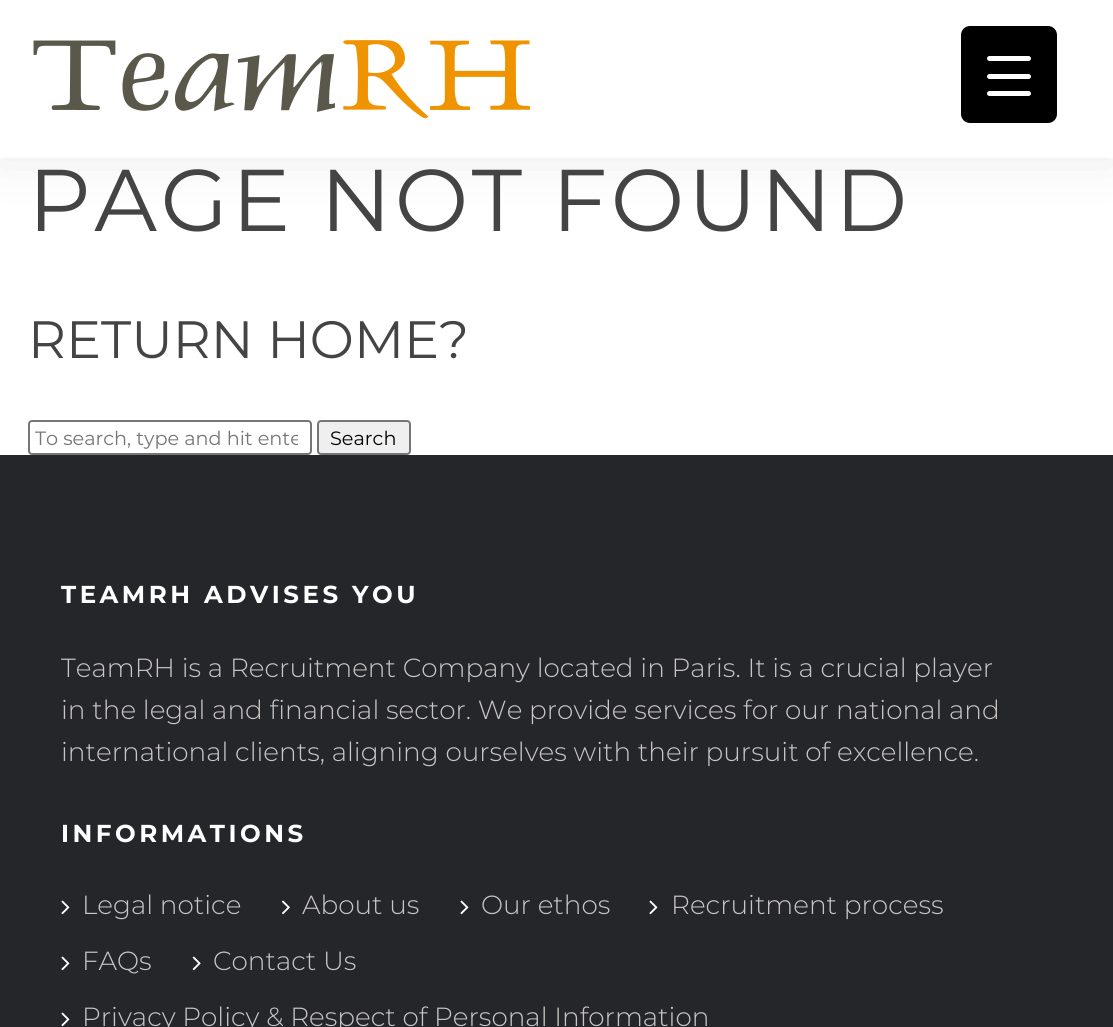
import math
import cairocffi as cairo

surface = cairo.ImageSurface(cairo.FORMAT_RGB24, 1113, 1027)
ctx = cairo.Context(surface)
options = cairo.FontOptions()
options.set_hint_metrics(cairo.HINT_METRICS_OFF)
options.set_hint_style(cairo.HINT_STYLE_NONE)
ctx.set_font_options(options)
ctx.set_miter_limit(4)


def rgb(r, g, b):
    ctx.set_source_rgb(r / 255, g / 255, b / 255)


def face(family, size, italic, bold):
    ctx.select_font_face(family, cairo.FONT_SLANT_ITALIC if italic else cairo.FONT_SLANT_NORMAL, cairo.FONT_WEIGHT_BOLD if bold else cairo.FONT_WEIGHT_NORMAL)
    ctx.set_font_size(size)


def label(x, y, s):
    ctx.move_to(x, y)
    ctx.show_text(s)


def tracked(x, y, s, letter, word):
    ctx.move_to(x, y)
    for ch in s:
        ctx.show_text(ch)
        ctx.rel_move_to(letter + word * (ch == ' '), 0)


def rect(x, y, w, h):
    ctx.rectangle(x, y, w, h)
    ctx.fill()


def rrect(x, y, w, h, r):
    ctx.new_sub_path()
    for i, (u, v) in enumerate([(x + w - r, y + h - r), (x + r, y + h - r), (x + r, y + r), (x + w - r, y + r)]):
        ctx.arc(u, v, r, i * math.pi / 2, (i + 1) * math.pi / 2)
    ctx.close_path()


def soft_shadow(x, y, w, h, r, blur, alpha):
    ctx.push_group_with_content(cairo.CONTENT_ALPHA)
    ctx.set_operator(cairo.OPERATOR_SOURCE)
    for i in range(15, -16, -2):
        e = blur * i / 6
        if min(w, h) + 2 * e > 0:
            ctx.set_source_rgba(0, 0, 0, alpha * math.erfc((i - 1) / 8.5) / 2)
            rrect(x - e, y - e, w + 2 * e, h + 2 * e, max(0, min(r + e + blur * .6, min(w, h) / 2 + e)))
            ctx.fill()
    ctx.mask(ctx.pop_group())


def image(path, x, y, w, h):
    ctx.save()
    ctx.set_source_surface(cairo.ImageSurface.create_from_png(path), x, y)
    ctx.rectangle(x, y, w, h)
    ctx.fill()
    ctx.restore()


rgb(255, 255, 255)
ctx.paint()
ctx.save()
ctx.set_fill_rule(cairo.FILL_RULE_EVEN_ODD)
ctx.new_path()
ctx.move_to(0, 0)
ctx.line_to(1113, 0)
ctx.line_to(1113, 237)
ctx.line_to(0, 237)
ctx.close_path()
ctx.move_to(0, 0)
ctx.line_to(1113, 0)
ctx.line_to(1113, 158)
ctx.line_to(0, 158)
ctx.close_path()
ctx.clip()
rgb(0, 0, 0)
soft_shadow(0, 0, 1113, 158, 0, 26, 0.09)
ctx.restore()
image('image0.png', 33, 40, 498, 79)
rgb(0, 0, 0)
rrect(961, 26, 96, 97, 9)
ctx.fill()
rgb(255, 255, 255)
rrect(987, 74, 44, 5, 2.5)
ctx.fill()
rrect(987, 56, 44, 5, 2.5)
ctx.fill()
rrect(987, 91, 44, 5, 2.5)
ctx.fill()
face('Montserrat', 87.5, 0, 0)
rgb(68, 68, 68)
tracked(28, 231, 'PAGE NOT FOUND', 3.5, 0)
face('Montserrat', 52.5, 0, 0)
label(28, 358, 'RETURN HOME?')
rrect(29, 421, 282, 33, 3)
rgb(118, 118, 118)
ctx.stroke()
ctx.save()
ctx.rectangle(35, 425, 263, 25)
ctx.clip()
face('Montserrat', 19.25, 0, 0)
rgb(117, 117, 117)
label(35, 445, 'To search, type and hit ente')
ctx.restore()
rgb(239, 239, 239)
rrect(318, 421, 92, 33, 3)
ctx.fill_preserve()
rgb(118, 118, 118)
ctx.stroke()
face('Montserrat', 19.25, 0, 0)
rgb(0, 0, 0)
label(330, 445, 'Search')
rgb(37, 38, 42)
rect(0, 455, 1113, 572)
face('Montserrat', 24.5, 0, 1)
rgb(255, 255, 255)
tracked(61, 603, 'TEAMRH ADVISES YOU', 3.5, 0)
face('Montserrat Light', 26.25, 0, 0)
rgb(203, 198, 198)
label(61, 677, 'TeamRH is a Recruitment Company located in Paris. It is a crucial player')
label(61, 719, 'in the legal and financial sector. We provide services for our national and')
label(61, 761, 'international clients, aligning ourselves with their pursuit of excellence.')
face('Montserrat', 24.5, 0, 1)
rgb(255, 255, 255)
tracked(61, 842, 'INFORMATIONS', 3.5, 0)
image('image1.png', 61, 900, 9, 15)
face('Montserrat Light', 26.25, 0, 0)
rgb(203, 198, 198)
label(82, 914, 'Legal notice')
image('image2.png', 282, 900, 8, 15)
label(302, 914, 'About us')
image('image1.png', 460, 900, 9, 15)
label(481, 914, 'Our ethos')
image('image1.png', 649, 900, 9, 15)
label(671, 914, 'Recruitment process')
image('image1.png', 61, 956, 9, 15)
label(82, 970, 'FAQs')
image('image3.png', 192, 956, 9, 15)
label(213, 970, 'Contact Us')
image('image1.png', 61, 1012, 9, 15)
label(82, 1026, 'Privacy Policy & Respect of Personal Information')
surface.write_to_png('render.png')
